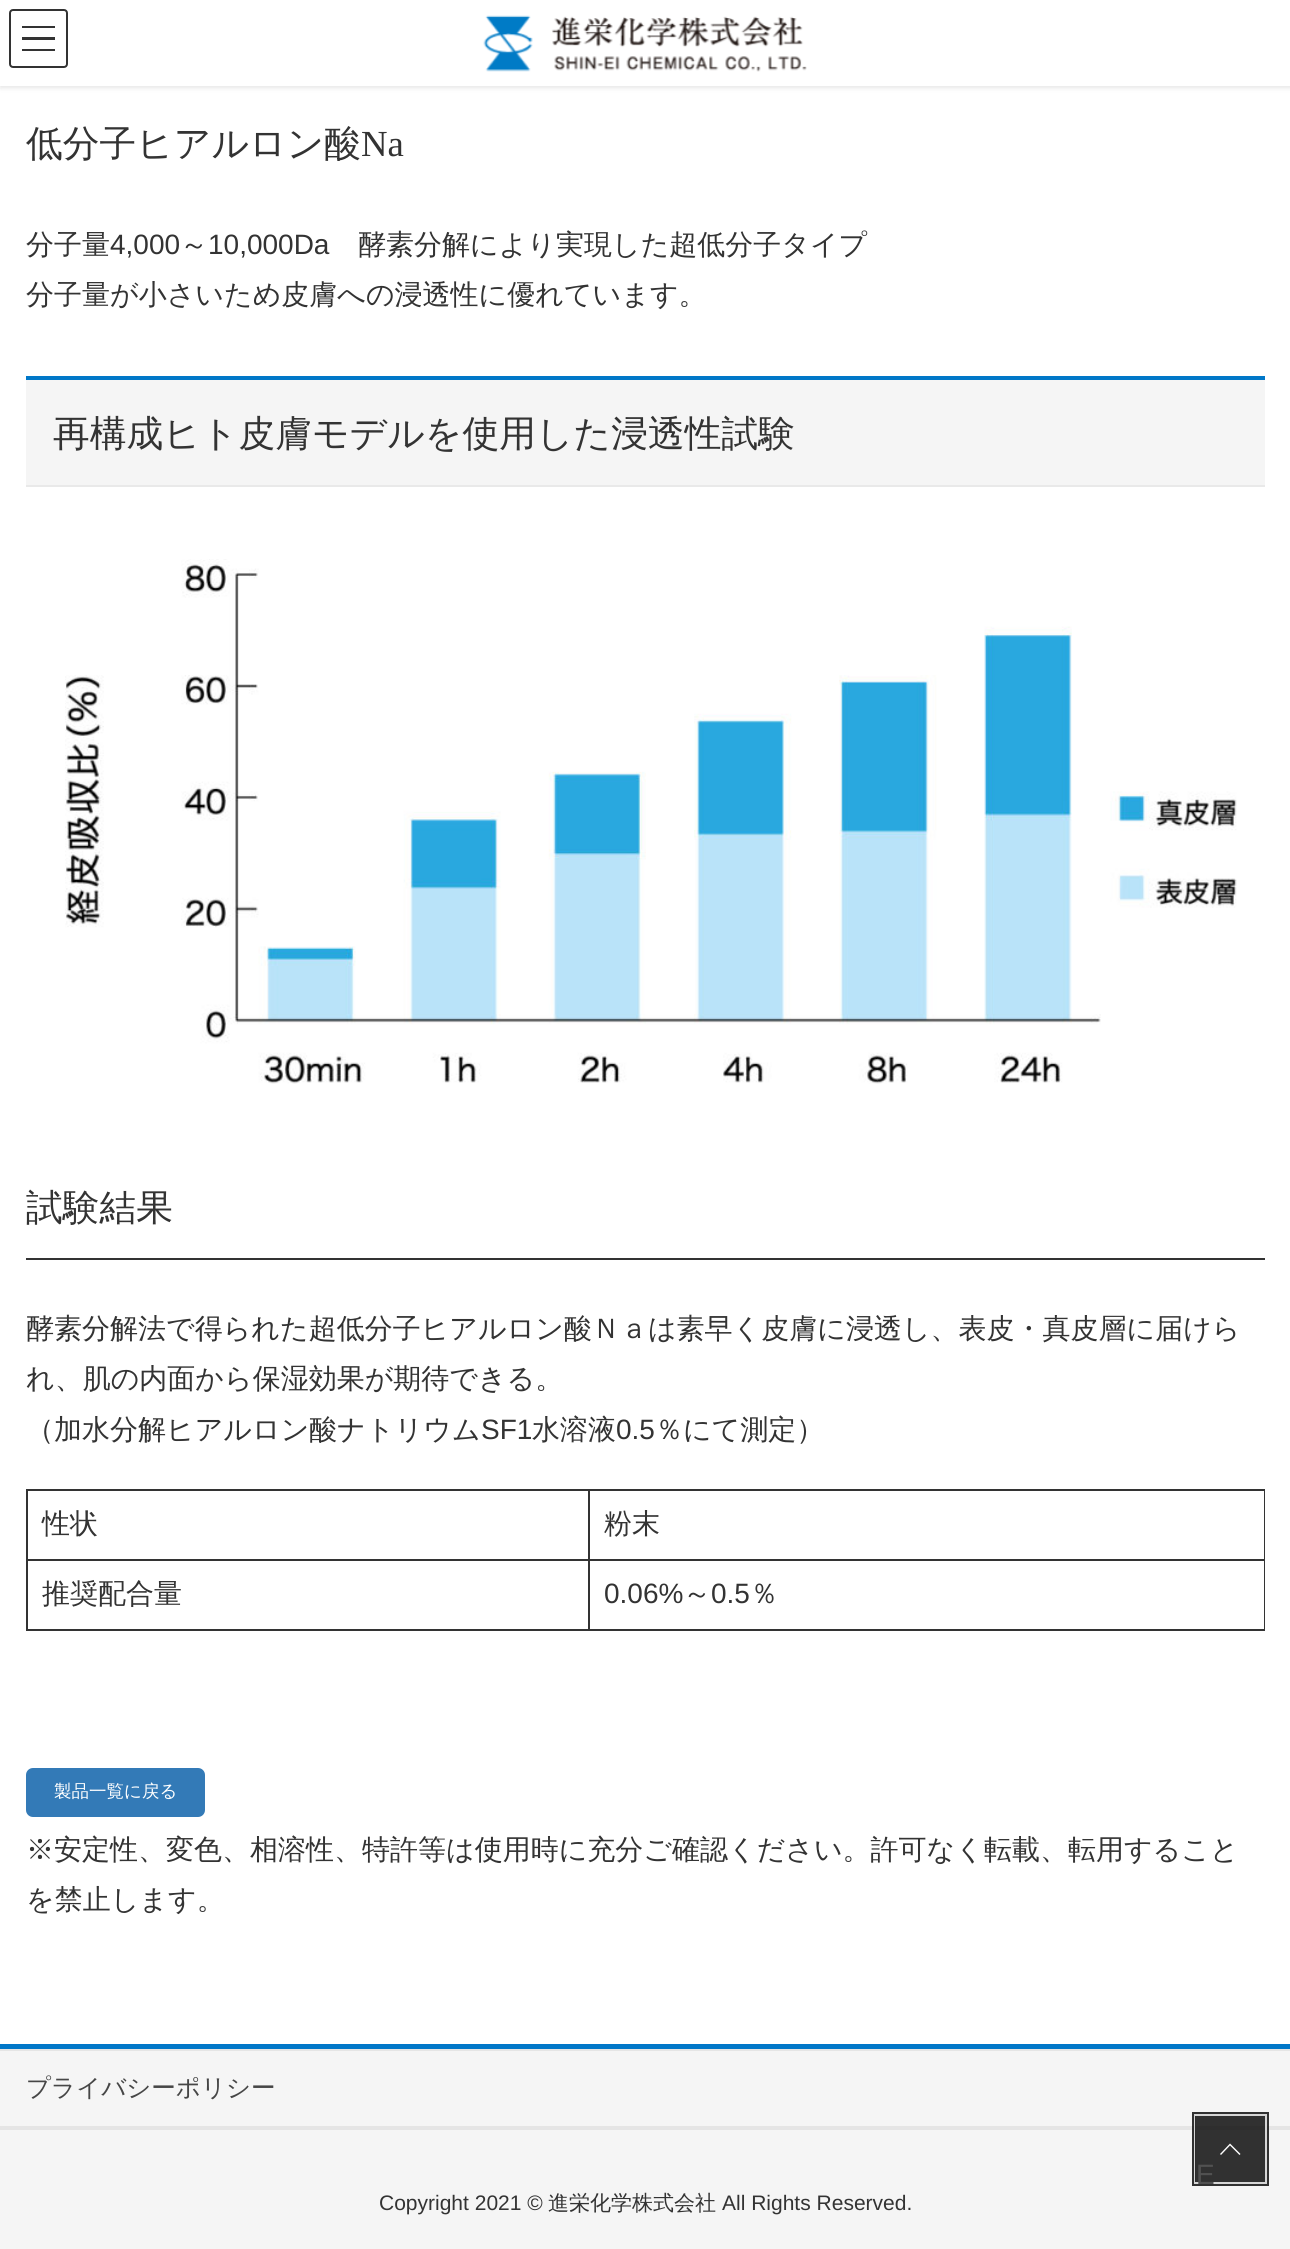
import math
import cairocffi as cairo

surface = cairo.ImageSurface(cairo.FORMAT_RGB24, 1290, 2249)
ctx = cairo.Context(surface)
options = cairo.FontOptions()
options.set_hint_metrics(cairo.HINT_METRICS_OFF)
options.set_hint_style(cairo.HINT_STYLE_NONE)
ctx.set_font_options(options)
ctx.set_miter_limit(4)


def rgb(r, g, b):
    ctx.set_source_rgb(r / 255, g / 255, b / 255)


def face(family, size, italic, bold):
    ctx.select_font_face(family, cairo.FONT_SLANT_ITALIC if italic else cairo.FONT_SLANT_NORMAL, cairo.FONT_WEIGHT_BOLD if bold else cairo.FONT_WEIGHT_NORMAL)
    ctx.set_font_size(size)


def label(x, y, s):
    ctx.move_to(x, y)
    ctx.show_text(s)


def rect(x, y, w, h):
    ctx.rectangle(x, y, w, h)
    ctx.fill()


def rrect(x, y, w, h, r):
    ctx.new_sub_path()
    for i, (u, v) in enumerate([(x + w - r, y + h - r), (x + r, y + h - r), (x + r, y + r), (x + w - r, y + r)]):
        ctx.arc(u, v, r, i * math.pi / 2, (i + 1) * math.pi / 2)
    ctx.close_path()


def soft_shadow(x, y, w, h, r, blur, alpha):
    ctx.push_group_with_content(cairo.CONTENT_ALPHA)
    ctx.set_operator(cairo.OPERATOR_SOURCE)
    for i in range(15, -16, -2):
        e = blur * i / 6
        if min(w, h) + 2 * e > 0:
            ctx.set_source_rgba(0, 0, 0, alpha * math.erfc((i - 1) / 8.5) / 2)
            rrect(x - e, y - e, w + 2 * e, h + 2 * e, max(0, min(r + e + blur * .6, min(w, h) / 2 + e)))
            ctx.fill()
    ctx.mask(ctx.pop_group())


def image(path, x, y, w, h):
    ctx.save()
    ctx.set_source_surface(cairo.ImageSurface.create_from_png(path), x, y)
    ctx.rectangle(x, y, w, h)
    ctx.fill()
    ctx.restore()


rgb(255, 255, 255)
ctx.paint()
rgb(0, 0, 0)
soft_shadow(0, 2, 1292, 86, 0, 2.5, 0.1)
rgb(255, 255, 255)
rect(0, 0, 1290, 86)
image('image0.png', 483, 15, 324, 57)
rgb(51, 51, 51)
rect(22, 26, 33, 2)
rect(22, 37, 33, 3)
rect(22, 49, 33, 2)
rrect(10, 10, 57, 57, 3)
ctx.stroke()
face('WenQuanYi Zen Hei Medium', 36.75, 0, 0)
label(26, 156, '低分子ヒアルロン酸')
face('Liberation Serif', 36.75, 0, 0)
label(361, 156, 'Na')
face('WenQuanYi Zen Hei Medium', 28, 0, 0)
label(26, 254, '分子量')
face('Liberation Sans', 28, 0, 0)
label(110, 254, '4,000')
face('WenQuanYi Zen Hei Medium', 28, 0, 0)
label(180, 254, '～')
face('Liberation Sans', 28, 0, 0)
label(208, 254, '10,000Da')
face('WenQuanYi Zen Hei Medium', 28, 0, 0)
label(358, 254, '酵素分解により実現した超低分子タイプ')
label(26, 304, '分子量が小さいため皮膚への浸透性に優れています。')
rgb(245, 245, 245)
rect(26, 380, 1239, 105)
rgb(0, 119, 200)
rect(26, 376, 1239, 4)
rgb(233, 233, 233)
rect(26, 485, 1239, 2)
face('WenQuanYi Zen Hei Medium', 36.75, 0, 0)
rgb(51, 51, 51)
label(53, 446, '再構成ヒト皮膚モデルを使用した浸透性試験')
image('image1.png', 65, 559, 1172, 525)
rect(26, 1258, 1239, 2)
label(26, 1220, '試験結果')
face('WenQuanYi Zen Hei Medium', 28, 0, 0)
label(26, 1338, '酵素分解法で得られた超低分子ヒアルロン酸Ｎａは素早く皮膚に浸透し、表皮・真皮層に届けら')
label(26, 1388, 'れ、肌の内面から保湿効果が期待できる。')
label(26, 1439, '（加水分解ヒアルロン酸ナトリウム')
face('Liberation Sans', 28, 0, 0)
label(481, 1439, 'SF1')
face('WenQuanYi Zen Hei Medium', 28, 0, 0)
label(532, 1439, '水溶液')
face('Liberation Sans', 28, 0, 0)
label(616, 1439, '0.5')
face('WenQuanYi Zen Hei Medium', 28, 0, 0)
label(655, 1439, '％にて測定）')
rect(588, 1489, 677, 2)
rect(588, 1559, 677, 2)
rect(1264, 1559, 1, 72)
rect(588, 1629, 677, 2)
rect(588, 1559, 2, 72)
rect(26, 1559, 564, 2)
rect(588, 1489, 2, 72)
rect(26, 1489, 564, 2)
rect(26, 1629, 564, 2)
rect(26, 1559, 2, 72)
rect(26, 1489, 2, 72)
label(42, 1533, '性状')
rect(1264, 1489, 1, 72)
label(604, 1533, '粉末')
label(42, 1603, '推奨配合量')
face('Liberation Sans', 28, 0, 0)
label(604, 1603, '0.06%')
face('WenQuanYi Zen Hei Medium', 28, 0, 0)
label(683, 1603, '～')
face('Liberation Sans', 28, 0, 0)
label(711, 1603, '0.5')
face('WenQuanYi Zen Hei Medium', 28, 0, 0)
label(750, 1603, '％')
rgb(51, 122, 183)
rrect(26, 1768, 179, 49, 7)
ctx.fill()
face('WenQuanYi Zen Hei Medium', 17.5, 0, 0)
rgb(255, 255, 255)
label(54, 1797, '製品一覧に戻る')
face('WenQuanYi Zen Hei Medium', 28, 0, 0)
rgb(51, 51, 51)
label(26, 1859, '※安定性、変色、相溶性、特許等は使用時に充分ご確認ください。許可なく転載、転用すること')
label(26, 1909, 'を禁止します。')
rgb(245, 245, 245)
rect(0, 2051, 1290, 198)
rgb(0, 119, 200)
rect(0, 2044, 1290, 5)
rgb(229, 229, 229)
rect(0, 2049, 1290, 2)
rect(0, 2126, 1290, 4)
face('WenQuanYi Zen Hei Medium', 24.5, 0, 0)
rgb(70, 70, 70)
label(26, 2096, 'プライバシーポリシー')
face('Liberation Sans', 21, 0, 0)
rgb(51, 51, 51)
label(379, 2210, 'Copyright 2021 ©')
face('WenQuanYi Zen Hei Medium', 21, 0, 0)
label(548, 2210, '進栄化学株式会社')
face('Liberation Sans', 21, 0, 0)
label(722, 2210, 'All Rights Reserved.')
ctx.rectangle(1194, 2114, 73, 70)
ctx.set_source_rgba(0, 0, 0, 0.8)
ctx.set_line_width(4)
ctx.stroke()
ctx.rectangle(1195, 2115, 71, 68)
ctx.set_source_rgba(1, 1, 1, 0.8)
ctx.set_line_width(2)
ctx.stroke()
ctx.set_source_rgba(0, 0, 0, 0.8)
rect(1195, 2116, 70, 66)
rgb(255, 255, 255)
ctx.new_path()
ctx.move_to(1240.5, 2154)
ctx.line_to(1239.5, 2155)
ctx.line_to(1230, 2145.5)
ctx.line_to(1221, 2155)
ctx.line_to(1220, 2154)
ctx.line_to(1230, 2143.5)
ctx.close_path()
ctx.fill()
face('Liberation Sans', 28, 0, 0)
rgb(81, 81, 81)
label(1196, 2184, 'E')
surface.write_to_png('render.png')
